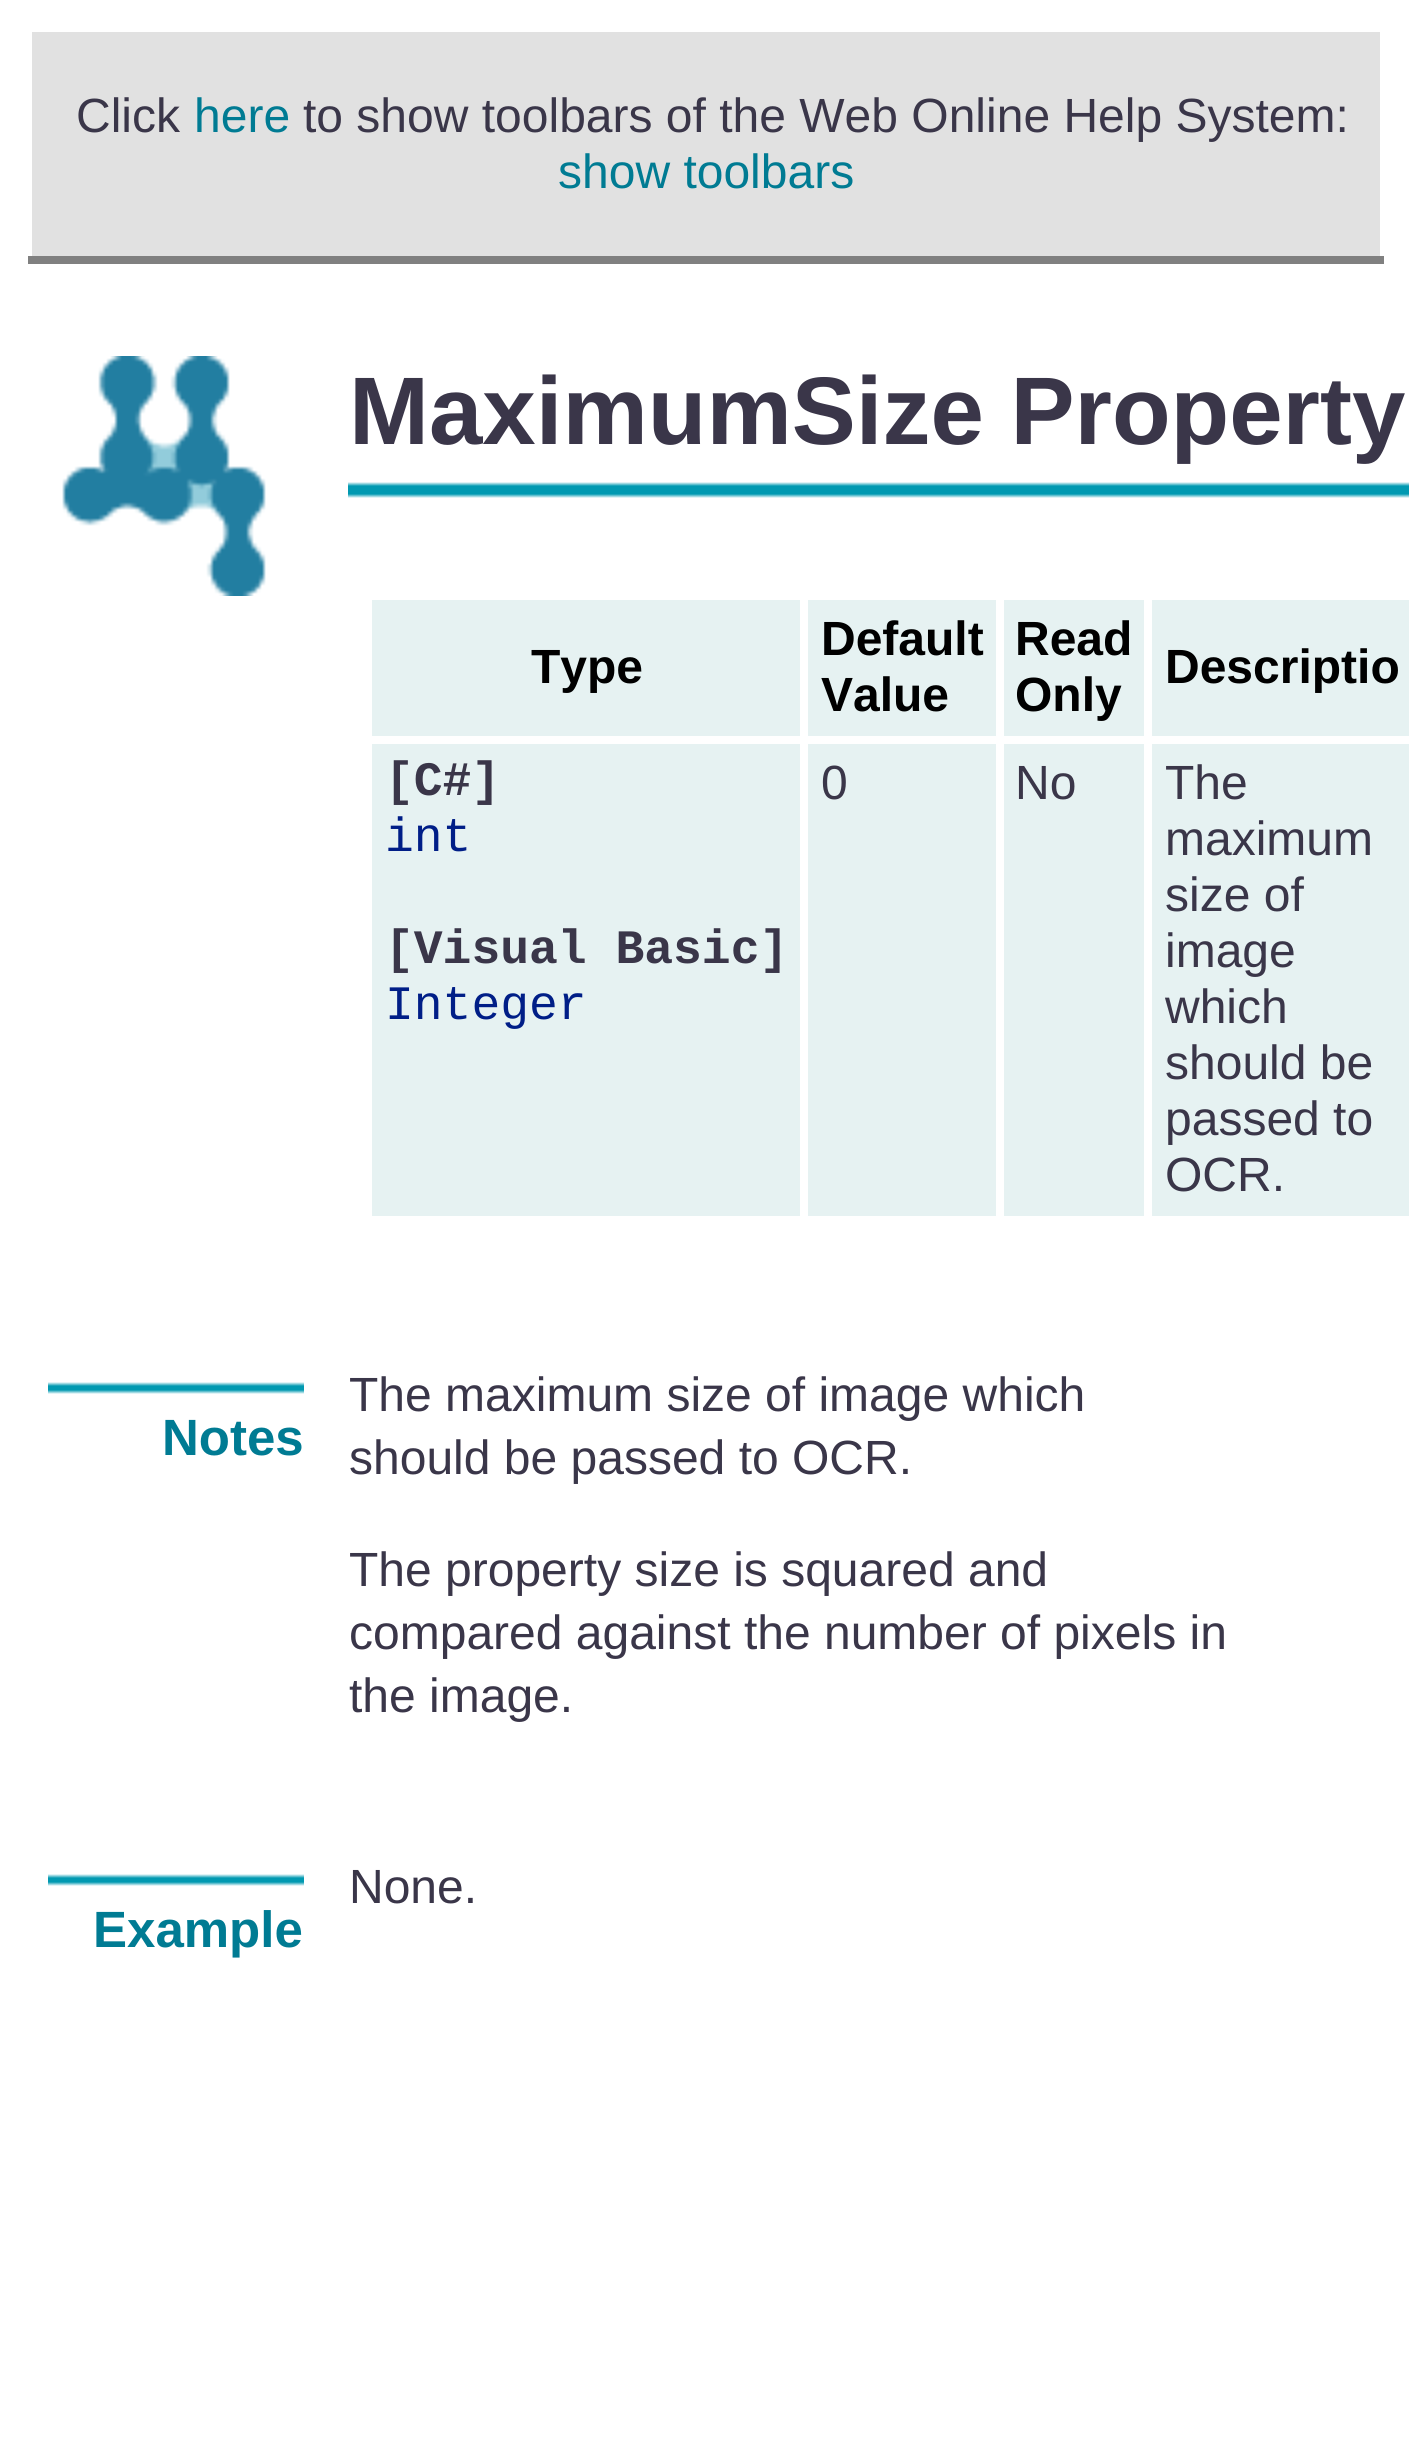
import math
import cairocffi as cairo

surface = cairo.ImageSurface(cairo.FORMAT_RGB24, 1409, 2451)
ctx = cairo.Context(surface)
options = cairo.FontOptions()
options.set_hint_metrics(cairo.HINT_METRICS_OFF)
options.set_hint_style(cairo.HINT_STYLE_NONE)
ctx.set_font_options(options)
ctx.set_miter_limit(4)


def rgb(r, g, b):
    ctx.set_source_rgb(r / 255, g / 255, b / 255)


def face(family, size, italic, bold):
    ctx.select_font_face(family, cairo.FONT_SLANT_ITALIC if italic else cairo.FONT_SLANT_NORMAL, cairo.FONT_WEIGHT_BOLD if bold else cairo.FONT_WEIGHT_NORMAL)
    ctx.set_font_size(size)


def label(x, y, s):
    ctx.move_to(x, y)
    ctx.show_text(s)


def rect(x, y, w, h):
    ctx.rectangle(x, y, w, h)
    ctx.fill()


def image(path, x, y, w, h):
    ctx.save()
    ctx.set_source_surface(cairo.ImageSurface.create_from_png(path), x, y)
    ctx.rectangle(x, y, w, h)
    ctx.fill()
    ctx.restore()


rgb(255, 255, 255)
ctx.paint()
rgb(225, 225, 225)
rect(32, 32, 1348, 224)
rgb(128, 128, 128)
rect(28, 256, 1356, 8)
face('Liberation Sans', 48, 0, 0)
rgb(58, 54, 73)
label(76, 132, 'Click')
rgb(0, 123, 147)
label(194, 132, 'here')
rgb(58, 54, 73)
label(303, 132, 'to show toolbars of the Web Online Help System:')
rgb(0, 123, 147)
label(558, 188, 'show toolbars')
image('image0.png', 62, 356, 204, 240)
face('Liberation Sans', 96, 0, 1)
rgb(58, 54, 73)
label(349, 444, 'MaximumSize Property')
image('image1.png', 348, 482, 1061, 16)
rgb(230, 242, 242)
rect(372, 600, 1037, 616)
ctx.rectangle(370, 598, 432, 140)
rgb(255, 255, 255)
ctx.set_line_width(4)
ctx.stroke()
face('Liberation Sans', 48, 0, 1)
rgb(0, 0, 0)
label(531, 683, 'Type')
ctx.rectangle(806, 598, 192, 140)
rgb(255, 255, 255)
ctx.stroke()
rgb(0, 0, 0)
label(821, 655, 'Default')
label(821, 711, 'Value')
ctx.rectangle(1002, 598, 144, 140)
rgb(255, 255, 255)
ctx.stroke()
rgb(0, 0, 0)
label(1015, 655, 'Read')
label(1015, 711, 'Only')
ctx.rectangle(1150, 598, 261, 140)
rgb(255, 255, 255)
ctx.stroke()
rgb(0, 0, 0)
label(1165, 683, 'Descriptio')
ctx.rectangle(370, 742, 432, 476)
rgb(255, 255, 255)
ctx.stroke()
face('Liberation Mono', 48, 0, 1)
rgb(58, 54, 73)
label(385, 795, '[C#]')
face('Liberation Mono', 48, 0, 0)
rgb(0, 30, 135)
label(385, 851, 'int')
face('Liberation Mono', 48, 0, 1)
rgb(58, 54, 73)
label(385, 963, '[Visual Basic]')
face('Liberation Mono', 48, 0, 0)
rgb(0, 30, 135)
label(385, 1019, 'Integer')
ctx.rectangle(806, 742, 192, 476)
rgb(255, 255, 255)
ctx.stroke()
face('Liberation Sans', 48, 0, 0)
rgb(58, 54, 73)
label(821, 799, '0')
ctx.rectangle(1002, 742, 144, 476)
rgb(255, 255, 255)
ctx.stroke()
rgb(58, 54, 73)
label(1015, 799, 'No')
ctx.rectangle(1150, 742, 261, 476)
rgb(255, 255, 255)
ctx.stroke()
rgb(58, 54, 73)
label(1165, 799, 'The')
label(1165, 855, 'maximum')
label(1165, 911, 'size of')
label(1165, 967, 'image')
label(1165, 1023, 'which')
label(1165, 1079, 'should be')
label(1165, 1135, 'passed to')
label(1165, 1191, 'OCR.')
image('image2.png', 48, 1382, 256, 12)
face('Liberation Sans', 51, 0, 1)
rgb(0, 123, 147)
label(162, 1455, 'Notes')
face('Liberation Sans', 48, 0, 0)
rgb(58, 54, 73)
label(349, 1411, 'The maximum size of image which')
label(349, 1474, 'should be passed to OCR.')
label(349, 1586, 'The property size is squared and')
label(349, 1649, 'compared against the number of pixels in')
label(349, 1712, 'the image.')
label(349, 1903, 'None.')
image('image2.png', 48, 1874, 256, 12)
face('Liberation Sans', 51, 0, 1)
rgb(0, 123, 147)
label(93, 1947, 'Example')
surface.write_to_png('render.png')
